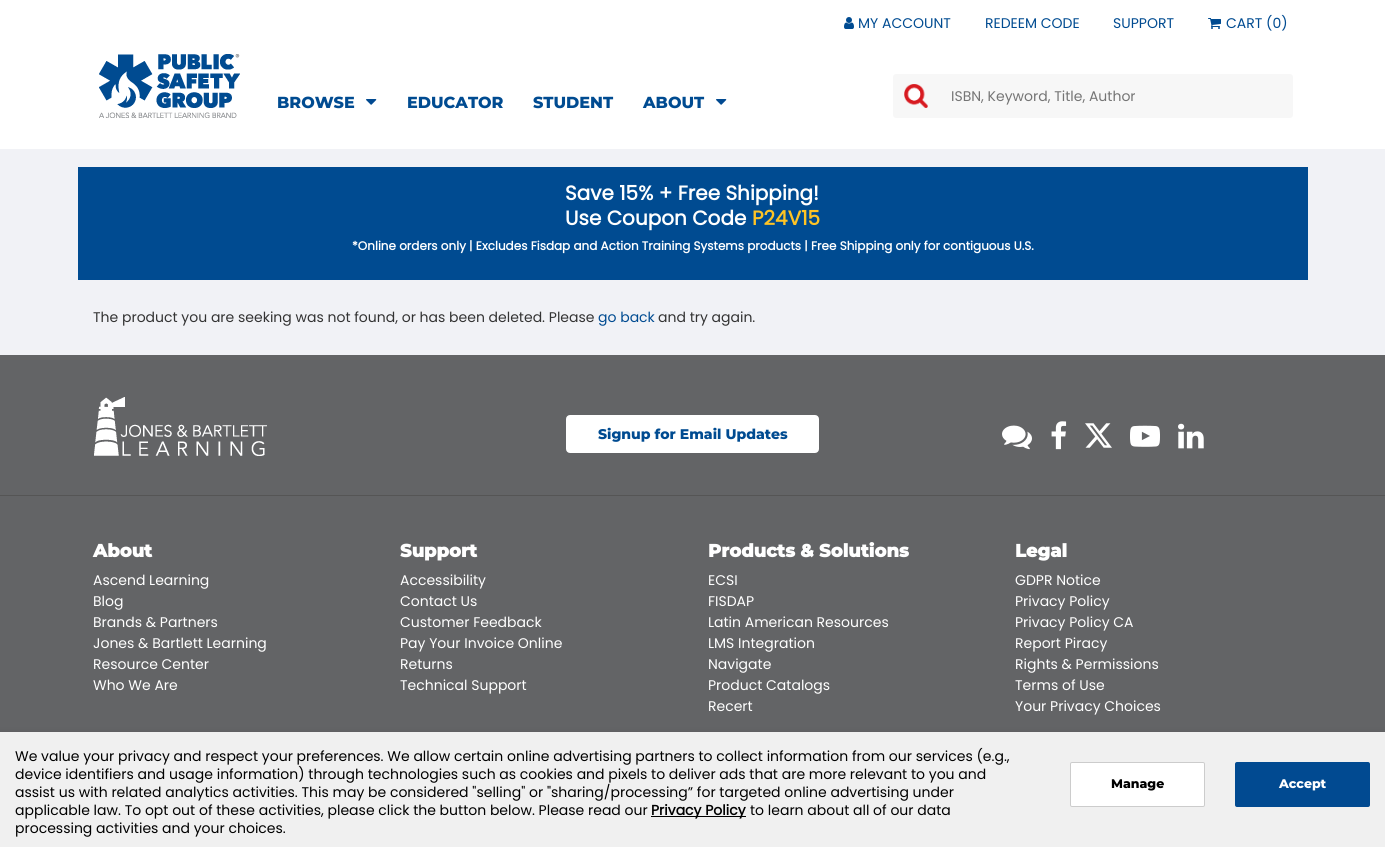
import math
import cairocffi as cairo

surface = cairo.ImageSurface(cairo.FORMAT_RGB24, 1385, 847)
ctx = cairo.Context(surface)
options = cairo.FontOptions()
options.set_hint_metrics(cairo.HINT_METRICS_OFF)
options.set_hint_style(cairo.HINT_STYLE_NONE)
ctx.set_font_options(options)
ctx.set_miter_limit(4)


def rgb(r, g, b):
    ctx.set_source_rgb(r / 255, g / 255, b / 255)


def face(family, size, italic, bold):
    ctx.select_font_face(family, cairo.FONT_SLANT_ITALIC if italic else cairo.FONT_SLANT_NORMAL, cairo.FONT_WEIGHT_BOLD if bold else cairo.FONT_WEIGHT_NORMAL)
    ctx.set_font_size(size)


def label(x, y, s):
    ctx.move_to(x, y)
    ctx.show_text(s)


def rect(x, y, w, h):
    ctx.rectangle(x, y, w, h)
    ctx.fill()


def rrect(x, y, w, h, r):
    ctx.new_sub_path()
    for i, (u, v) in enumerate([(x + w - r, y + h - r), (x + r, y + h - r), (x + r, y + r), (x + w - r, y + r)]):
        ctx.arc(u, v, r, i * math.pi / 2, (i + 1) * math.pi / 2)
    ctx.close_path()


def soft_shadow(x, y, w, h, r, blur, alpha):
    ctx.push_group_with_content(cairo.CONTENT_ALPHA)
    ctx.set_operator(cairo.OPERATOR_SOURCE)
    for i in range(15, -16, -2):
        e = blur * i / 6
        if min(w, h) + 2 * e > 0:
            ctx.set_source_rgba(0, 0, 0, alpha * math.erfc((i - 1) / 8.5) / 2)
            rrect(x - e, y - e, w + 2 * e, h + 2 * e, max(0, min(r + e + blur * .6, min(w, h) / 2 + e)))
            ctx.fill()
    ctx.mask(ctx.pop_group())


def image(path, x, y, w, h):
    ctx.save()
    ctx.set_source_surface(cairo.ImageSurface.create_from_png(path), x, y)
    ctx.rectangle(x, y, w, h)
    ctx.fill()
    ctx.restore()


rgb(241, 242, 246)
ctx.paint()
rgb(255, 255, 255)
rect(0, 0, 1385, 149)
image('image0.png', 844, 17, 10, 12)
face('Poppins', 14, 0, 0)
rgb(0, 75, 145)
label(858, 28, 'MY ACCOUNT')
label(985, 28, 'REDEEM CODE')
label(1113, 28, 'SUPPORT')
image('image1.png', 1208, 18, 13, 11)
label(1226, 28, 'CART (0)')
image('image2.png', 99, 54, 141, 64)
face('Montserrat Thin', 16, 0, 0)
label(277, 108, 'BROWSE')
image('image3.png', 366, 99, 11, 6)
label(407, 108, 'EDUCATOR')
label(533, 108, 'STUDENT')
label(643, 108, 'ABOUT')
image('image3.png', 716, 99, 11, 6)
rgb(247, 247, 247)
rrect(893, 74, 400, 44, 3)
ctx.fill()
image('image4.png', 904, 84, 24, 24)
face('Poppins', 14, 0, 0)
rgb(117, 117, 117)
label(951, 101, 'ISBN, Keyword, Title, Author')
rgb(0, 75, 145)
rect(78, 167, 1230, 113)
face('Poppins', 20, 0, 1)
rgb(255, 255, 255)
label(565, 200, 'Save 15% + Free Shipping!')
label(565, 225, 'Use Coupon Code')
rgb(255, 196, 37)
label(752, 225, 'P24V15')
face('Poppins', 12, 0, 1)
rgb(255, 255, 255)
label(352, 250, '*Online orders only | Excludes Fisdap and Action Training Systems products | Free Shipping only for contiguous U.S.')
face('Poppins', 14, 0, 0)
rgb(51, 51, 51)
label(93, 322, 'The product you are seeking was not found, or has been deleted. Please')
rgb(0, 75, 145)
label(598, 322, 'go back')
rgb(51, 51, 51)
label(658, 322, 'and try again.')
rgb(99, 100, 102)
rect(0, 355, 1385, 377)
image('image5.png', 94, 397, 173, 59)
rgb(255, 255, 255)
rrect(567, 416, 251, 36, 3)
ctx.fill_preserve()
ctx.stroke()
face('Montserrat Thin', 14, 0, 0)
rgb(0, 75, 145)
label(598, 439, 'Signup for Email Updates')
image('image6.png', 1002, 425, 30, 25)
image('image7.png', 1051, 421, 16, 29)
image('image8.png', 1085, 423, 27, 25)
image('image9.png', 1130, 425, 30, 22)
image('image10.png', 1178, 423, 26, 26)
rgb(85, 85, 85)
rect(0, 495, 1385, 1)
face('Montserrat', 18, 0, 1)
rgb(255, 255, 255)
label(93, 557, 'About')
face('Poppins', 14, 0, 0)
label(93, 585, 'Ascend Learning')
label(93, 606, 'Blog')
label(93, 627, 'Brands & Partners')
label(93, 648, 'Jones & Bartlett Learning')
label(93, 669, 'Resource Center')
label(93, 690, 'Who We Are')
face('Montserrat', 18, 0, 1)
label(400, 557, 'Support')
face('Poppins', 14, 0, 0)
label(400, 585, 'Accessibility')
label(400, 606, 'Contact Us')
label(400, 627, 'Customer Feedback')
label(400, 648, 'Pay Your Invoice Online')
label(400, 669, 'Returns')
label(400, 690, 'Technical Support')
face('Montserrat', 18, 0, 1)
label(708, 557, 'Products & Solutions')
face('Poppins', 14, 0, 0)
label(708, 585, 'ECSI')
label(708, 606, 'FISDAP')
label(708, 627, 'Latin American Resources')
label(708, 648, 'LMS Integration')
label(708, 669, 'Navigate')
label(708, 690, 'Product Catalogs')
label(708, 711, 'Recert')
face('Montserrat', 18, 0, 1)
label(1015, 557, 'Legal')
face('Poppins', 14, 0, 0)
label(1015, 585, 'GDPR Notice')
label(1015, 606, 'Privacy Policy')
label(1015, 627, 'Privacy Policy CA')
label(1015, 648, 'Report Piracy')
label(1015, 669, 'Rights & Permissions')
label(1015, 690, 'Terms of Use')
label(1015, 711, 'Your Privacy Choices')
rgb(0, 0, 0)
soft_shadow(0, 736, 1385, 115, 0, 6, 0.15)
rgb(240, 240, 240)
rect(0, 732, 1385, 115)
rgb(0, 0, 0)
label(15, 761, 'We value your privacy and respect your preferences. We allow certain online advertising partners to collect information from our services (e.g.,')
label(15, 779, 'device identifiers and usage information) through technologies such as cookies and pixels to deliver ads that are more relevant to you and')
label(15, 797, 'assist us with related analytics activities. This may be considered "selling" or "sharing/processing” for targeted online advertising under')
label(15, 815, 'applicable law. To opt out of these activities, please click the button below. Please read our')
rect(651, 816, 95, 1)
face('Poppins', 14, 0, 1)
label(651, 815, 'Privacy Policy')
face('Poppins', 14, 0, 0)
label(750, 815, 'to learn about all of our data')
label(15, 833, 'processing activities and your choices.')
rgb(255, 255, 255)
rrect(1070.5, 762.5, 134, 44, 1.5)
ctx.fill_preserve()
rgb(204, 204, 204)
ctx.set_line_width(1)
ctx.stroke()
face('Montserrat Thin', 12.5, 0, 0)
rgb(0, 0, 0)
label(1111, 788, 'Manage')
rgb(1, 74, 145)
rrect(1235, 762, 135, 45, 2)
ctx.fill()
rgb(255, 255, 255)
label(1279, 788, 'Accept')
surface.write_to_png('render.png')
